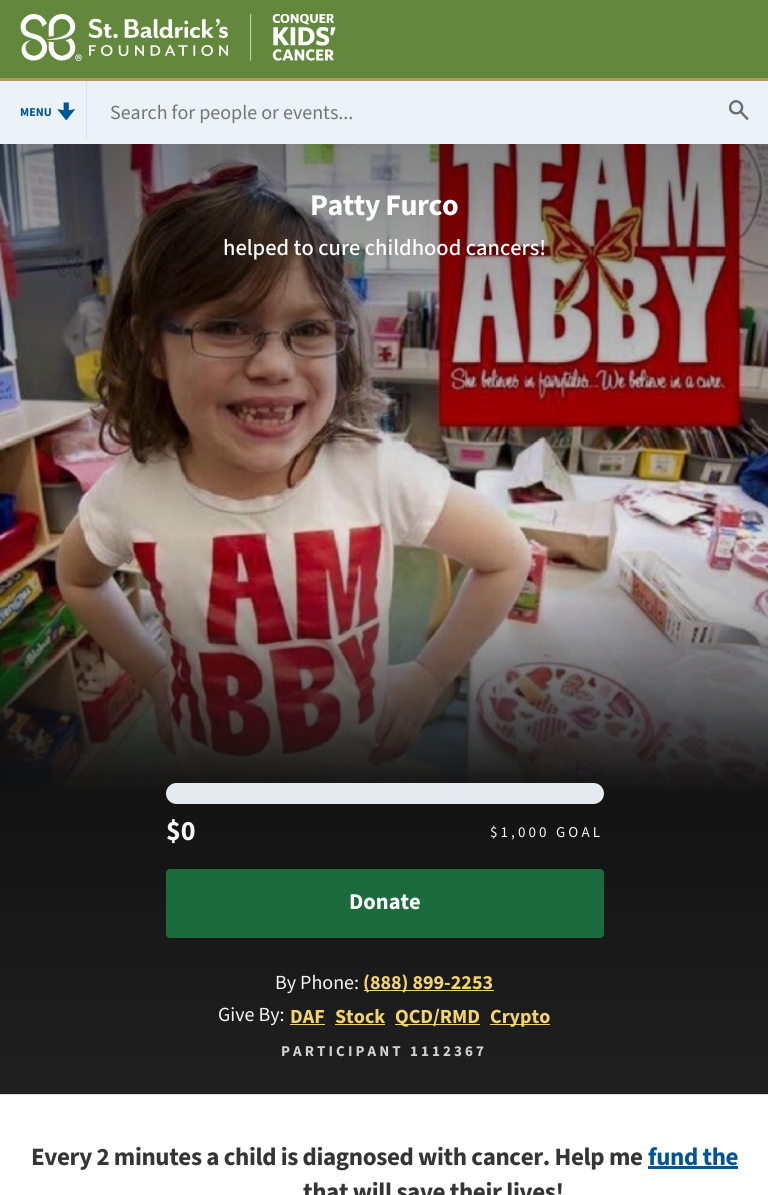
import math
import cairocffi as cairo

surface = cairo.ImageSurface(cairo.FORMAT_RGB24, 768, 1195)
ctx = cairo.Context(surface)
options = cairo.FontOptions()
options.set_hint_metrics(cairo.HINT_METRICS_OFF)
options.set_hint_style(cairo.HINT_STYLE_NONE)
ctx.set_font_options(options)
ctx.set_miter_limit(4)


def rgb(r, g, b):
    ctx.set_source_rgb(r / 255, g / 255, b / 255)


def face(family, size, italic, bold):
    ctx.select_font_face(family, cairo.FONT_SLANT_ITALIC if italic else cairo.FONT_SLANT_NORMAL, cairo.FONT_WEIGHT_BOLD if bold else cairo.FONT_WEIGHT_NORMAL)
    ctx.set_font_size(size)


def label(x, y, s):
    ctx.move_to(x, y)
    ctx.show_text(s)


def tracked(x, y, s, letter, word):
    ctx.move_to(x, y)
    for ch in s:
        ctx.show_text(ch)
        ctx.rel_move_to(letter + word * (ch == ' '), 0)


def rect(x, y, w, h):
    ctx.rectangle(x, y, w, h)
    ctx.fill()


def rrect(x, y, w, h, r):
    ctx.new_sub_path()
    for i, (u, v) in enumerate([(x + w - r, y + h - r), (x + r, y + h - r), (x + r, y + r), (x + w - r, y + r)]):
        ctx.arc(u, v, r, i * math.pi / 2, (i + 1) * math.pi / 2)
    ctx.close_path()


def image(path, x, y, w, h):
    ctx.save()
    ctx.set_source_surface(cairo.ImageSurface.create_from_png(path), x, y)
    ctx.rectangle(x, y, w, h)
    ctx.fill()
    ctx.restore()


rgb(255, 255, 255)
ctx.paint()
rgb(99, 136, 61)
rect(0, 0, 768, 78)
rgb(180, 151, 90)
rect(0, 78, 768, 3)
image('image0.png', 20, 14, 316, 47)
rgb(235, 243, 249)
rect(0, 81, 768, 63)
rgb(205, 229, 255)
rect(86, 81, 1, 60)
face('Source Sans 3', 12, 0, 1)
rgb(0, 85, 149)
label(20, 116, 'MENU')
image('image1.png', 57, 102, 19, 19)
face('Source Sans 3', 20, 0, 0)
rgb(117, 117, 117)
label(110, 119, 'Search for people or events...')
image('image2.png', 729, 100, 20, 20)
rgb(219, 219, 219)
rect(0, 1094, 768, 1)
image('image3.png', 0, 144, 768, 648)
gradient = cairo.LinearGradient(384, 124, 384, 1094)
gradient.add_color_stop_rgba(0.01, 0.039, 0.039, 0.039, 0)
gradient.add_color_stop_rgba(0.42, 0.039, 0.039, 0.039, 0)
gradient.add_color_stop_rgba(0.69, 0.039, 0.039, 0.039, 1)
gradient.add_color_stop_rgba(1, 0.039, 0.039, 0.039, 1)
ctx.set_source(gradient)
rect(0, 537, 768, 557)
gradient = cairo.LinearGradient(384, 124, 384, 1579)
gradient.add_color_stop_rgba(0, 0, 0, 0, 0.5)
gradient.add_color_stop_rgba(0.33, 0, 0, 0, 0)
gradient.add_color_stop_rgba(0.33, 0.208, 0.208, 0.208, 0)
gradient.add_color_stop_rgba(1, 0.208, 0.208, 0.208, 1)
ctx.set_source(gradient)
rect(0, 144, 768, 950)
face('Source Sans 3', 30, 0, 1)
rgb(255, 255, 255)
tracked(310, 215, 'Patty Furco', -0.5, 0)
face('Source Sans 3 Medium', 22.5, 0, 0)
label(223, 255, 'helped to cure childhood cancers!')
rgb(228, 234, 240)
rrect(166, 783, 438, 21, 10.5)
ctx.fill()
face('Source Sans 3', 28, 0, 1)
rgb(245, 245, 245)
label(166, 840, '$0')
face('Source Sans 3', 15, 0, 0)
tracked(490, 837, '$1,000', 3.1, 0)
tracked(556, 837, 'GOAL', 3.1, 0)
rgb(28, 107, 61)
rrect(167.5, 870.5, 435, 66, 2.5)
ctx.fill_preserve()
ctx.set_line_width(3)
ctx.stroke()
face('Source Sans 3', 22.5, 0, 1)
rgb(255, 255, 255)
label(349, 909, 'Donate')
face('Source Sans 3', 20, 0, 0)
rgb(245, 245, 245)
label(275, 989, 'By Phone:')
rgb(243, 211, 110)
rect(364, 990, 130, 1)
face('Source Sans 3', 20, 0, 1)
label(363, 989, '(888) 899-2253')
face('Source Sans 3', 20, 0, 0)
rgb(245, 245, 245)
label(218, 1021, 'Give By:')
face('Source Sans 3', 20, 0, 1)
rgb(243, 211, 110)
label(290, 1023, 'DAF')
rect(290, 1024, 35, 1)
label(335, 1023, 'Stock')
rect(335, 1024, 50, 1)
rect(395, 1024, 85, 1)
label(395, 1023, 'QCD/RMD')
rect(490, 1024, 60, 1)
label(490, 1023, 'Crypto')
face('Source Sans 3', 15, 0, 1)
rgb(210, 210, 210)
tracked(281, 1056, 'PARTICIPANT 1112367', 3.1, 0)
face('Source Sans 3', 25, 0, 1)
rgb(53, 53, 53)
tracked(31, 1165, 'Every 2 minutes a child is diagnosed with cancer. Help me', -0.38, 0)
rgb(0, 85, 149)
tracked(648, 1165, 'fund the', -0.38, 0)
rect(648, 1166, 90, 3)
rgb(53, 53, 53)
tracked(303, 1200, 'that will save their lives!', -0.38, 0)
surface.write_to_png('render.png')
